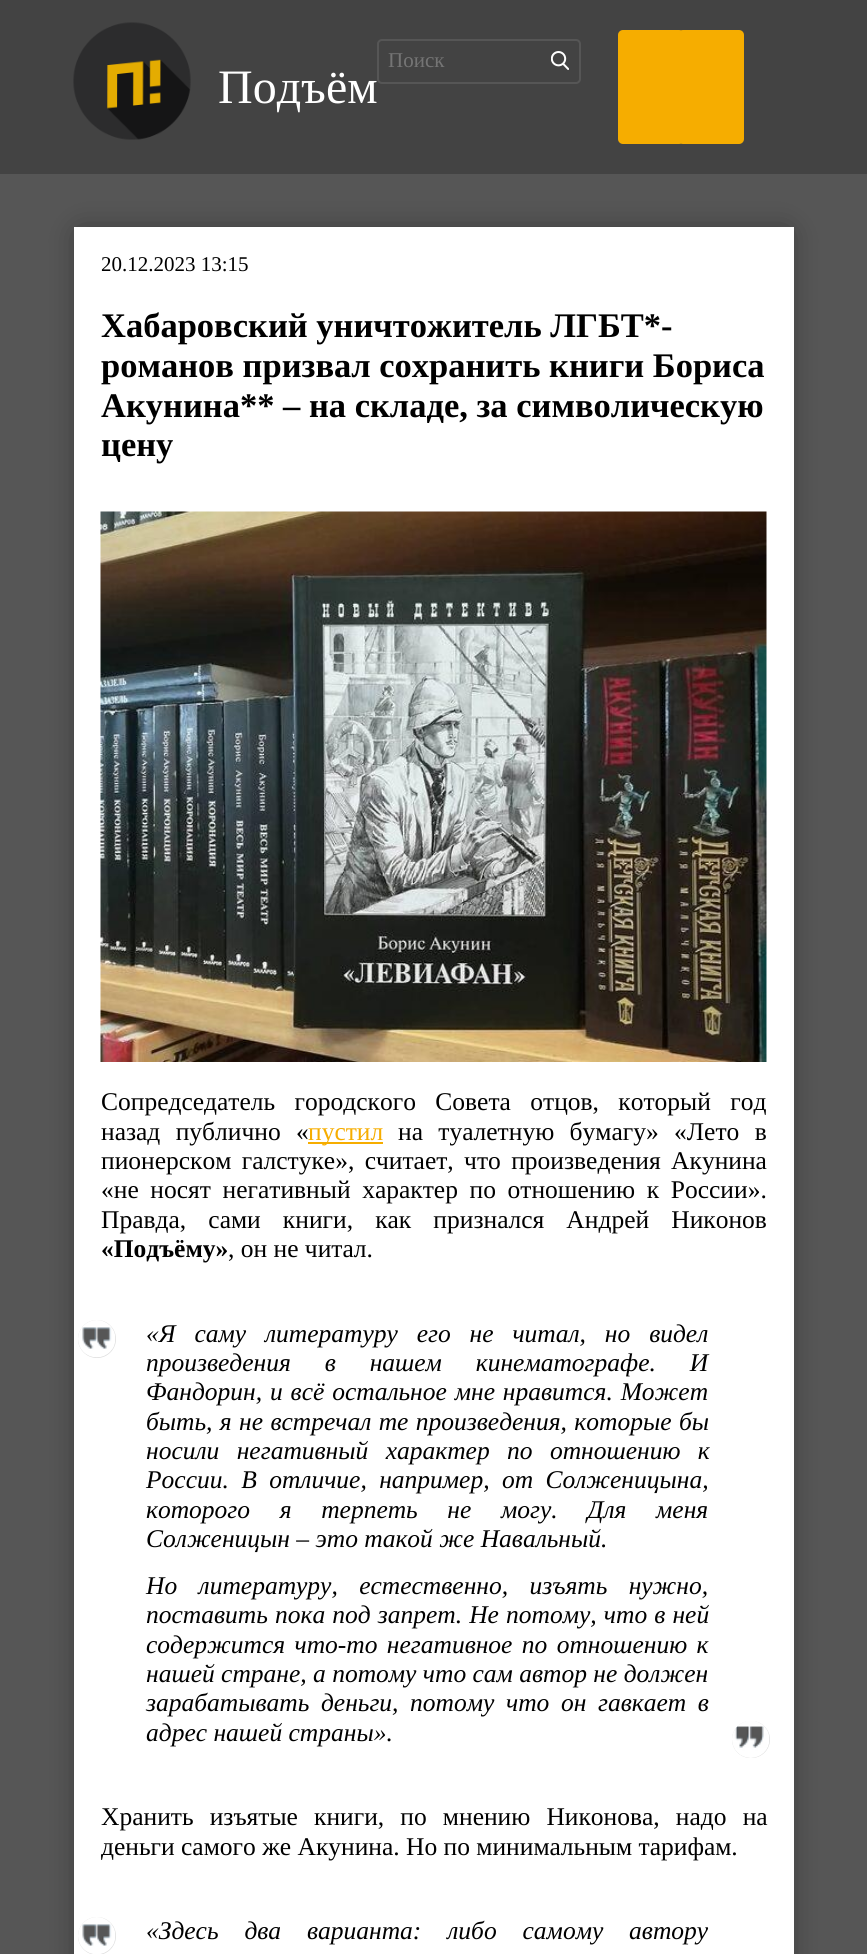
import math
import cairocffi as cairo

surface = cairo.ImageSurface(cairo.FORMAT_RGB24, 867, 1954)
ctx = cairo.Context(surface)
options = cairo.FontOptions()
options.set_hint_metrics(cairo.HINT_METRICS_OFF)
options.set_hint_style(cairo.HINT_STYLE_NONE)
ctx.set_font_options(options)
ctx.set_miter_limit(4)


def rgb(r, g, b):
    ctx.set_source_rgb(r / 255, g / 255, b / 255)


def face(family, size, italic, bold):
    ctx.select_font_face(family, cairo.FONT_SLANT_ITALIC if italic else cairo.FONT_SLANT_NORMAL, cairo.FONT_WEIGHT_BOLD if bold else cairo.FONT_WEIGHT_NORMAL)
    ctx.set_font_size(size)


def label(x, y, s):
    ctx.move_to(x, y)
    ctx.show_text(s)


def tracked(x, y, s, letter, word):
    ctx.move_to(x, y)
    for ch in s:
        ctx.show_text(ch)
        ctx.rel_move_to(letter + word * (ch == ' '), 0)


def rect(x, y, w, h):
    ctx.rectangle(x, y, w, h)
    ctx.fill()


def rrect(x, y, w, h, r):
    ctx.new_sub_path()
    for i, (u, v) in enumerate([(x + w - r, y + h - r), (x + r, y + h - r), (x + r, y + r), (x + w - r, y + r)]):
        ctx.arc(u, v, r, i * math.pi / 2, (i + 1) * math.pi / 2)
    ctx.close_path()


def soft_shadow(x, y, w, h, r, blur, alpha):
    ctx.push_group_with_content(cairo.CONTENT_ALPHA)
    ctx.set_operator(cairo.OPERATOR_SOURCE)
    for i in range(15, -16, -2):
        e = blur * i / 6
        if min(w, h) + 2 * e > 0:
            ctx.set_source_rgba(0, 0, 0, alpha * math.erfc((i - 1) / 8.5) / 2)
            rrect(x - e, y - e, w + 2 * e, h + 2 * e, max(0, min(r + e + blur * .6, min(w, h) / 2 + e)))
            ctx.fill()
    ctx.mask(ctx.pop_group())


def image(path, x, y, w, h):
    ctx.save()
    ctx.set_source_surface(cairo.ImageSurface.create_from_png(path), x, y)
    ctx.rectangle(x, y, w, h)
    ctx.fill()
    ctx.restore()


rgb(86, 86, 86)
ctx.paint()
rgb(67, 67, 67)
rect(0, 0, 867, 174)
rrect(378, 40, 202, 43, 4)
rgb(86, 86, 86)
ctx.stroke()
face('Liberation Serif', 21, 0, 0)
rgb(117, 117, 117)
label(388, 67, 'Поиск')
image('image0.png', 551, 51, 18, 19)
rgb(246, 173, 0)
rrect(618, 30, 66, 66, 5)
ctx.fill()
rrect(678, 30, 66, 66, 5)
ctx.fill()
rrect(618, 78, 66, 66, 5)
ctx.fill()
rrect(678, 78, 66, 66, 5)
ctx.fill()
image('image1.png', 73, 22, 118, 118)
face('Liberation Serif', 48, 0, 0)
rgb(255, 255, 255)
label(218, 103, 'Подъём')
rgb(0, 0, 0)
soft_shadow(81, 234, 705, 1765, 0, 15, 0.49)
rgb(255, 255, 255)
rect(74, 227, 720, 1727)
face('Liberation Serif', 21, 0, 0)
rgb(0, 0, 0)
label(101, 271, '20.12.2023 13:15')
face('Liberation Serif', 34.5, 0, 1)
label(101, 337, 'Хабаровский уничтожитель ЛГБТ*-')
label(101, 377, 'романов призвал сохранить книги Бориса')
label(101, 417, 'Акунина** – на складе, за символическую')
label(101, 456, 'цену')
image('image2.png', 100, 511, 667, 551)
face('Liberation Serif', 25.5, 0, 0)
tracked(101, 1110, 'Сопредседатель городского Совета отцов, который год', 0, 13)
tracked(101, 1140, 'назад публично «', 0, 9)
rgb(246, 173, 0)
rect(308, 1142, 75, 2)
label(308, 1140, 'пустил')
rgb(0, 0, 0)
tracked(398, 1140, 'на туалетную бумагу» «Лето в', 0, 9)
tracked(101, 1169, 'пионерском галстуке», считает, что произведения Акунина', 0, 4)
tracked(101, 1198, '«не носят негативный характер по отношению к России».', 0, 5.25)
tracked(101, 1228, 'Правда, сами книги, как признался Андрей Никонов', 0, 15.75)
face('Liberation Serif', 25.5, 0, 1)
label(101, 1257, '«Подъёму»')
face('Liberation Serif', 25.5, 0, 0)
label(228, 1257, ', он не читал.')
rgb(221, 221, 221)
ctx.new_path()
ctx.arc(97, 1339, 19, 0, 2 * math.pi)
ctx.fill()
image('image3.png', 78, 1320, 38, 38)
face('Liberation Serif', 25.5, 1, 0)
rgb(0, 0, 0)
tracked(146, 1342, '«Я саму литературу его не читал, но видел', 0, 12.5)
tracked(146, 1371, 'произведения в нашем кинематографе. И', 0, 27.5)
tracked(146, 1400, 'Фандорин, и всё остальное мне нравится. Может', 0, 1.5)
tracked(146, 1430, 'быть, я не встречал те произведения, которые бы', 0, 1)
tracked(146, 1459, 'носили негативный характер по отношению к', 0, 11)
tracked(146, 1488, 'России. В отличие, например, от Солженицына,', 0, 6)
tracked(146, 1518, 'которого я терпеть не могу. Для меня', 0, 23.25)
label(146, 1547, 'Солженицын – это такой же Навальный.')
tracked(146, 1594, 'Но литературу, естественно, изъять нужно,', 0, 15)
tracked(146, 1623, 'поставить пока под запрет. Не потому, что в ней', 0, 0.75)
tracked(146, 1653, 'содержится что-то негативное по отношению к', 0, 3)
label(146, 1682, 'нашей стране, а потому что сам автор не должен')
tracked(146, 1711, 'зарабатывать деньги, потому что он гавкает в', 0, 5.25)
label(146, 1741, 'адрес нашей страны».')
rgb(221, 221, 221)
rrect(732, 1721, 38, 37, 18.5)
ctx.fill()
image('image4.png', 732, 1721, 38, 37)
face('Liberation Serif', 25.5, 0, 0)
rgb(0, 0, 0)
tracked(101, 1825, 'Хранить изъятые книги, по мнению Никонова, надо на', 0, 9.75)
label(101, 1855, 'деньги самого же Акунина. Но по минимальным тарифам.')
rgb(221, 221, 221)
ctx.new_path()
ctx.arc(97, 1936, 19, 0, 2 * math.pi)
ctx.fill()
image('image5.png', 78, 1917, 38, 37)
face('Liberation Serif', 25.5, 1, 0)
rgb(0, 0, 0)
tracked(146, 1939, '«Здесь два варианта: либо самому автору', 0, 19.5)
surface.write_to_png('render.png')
